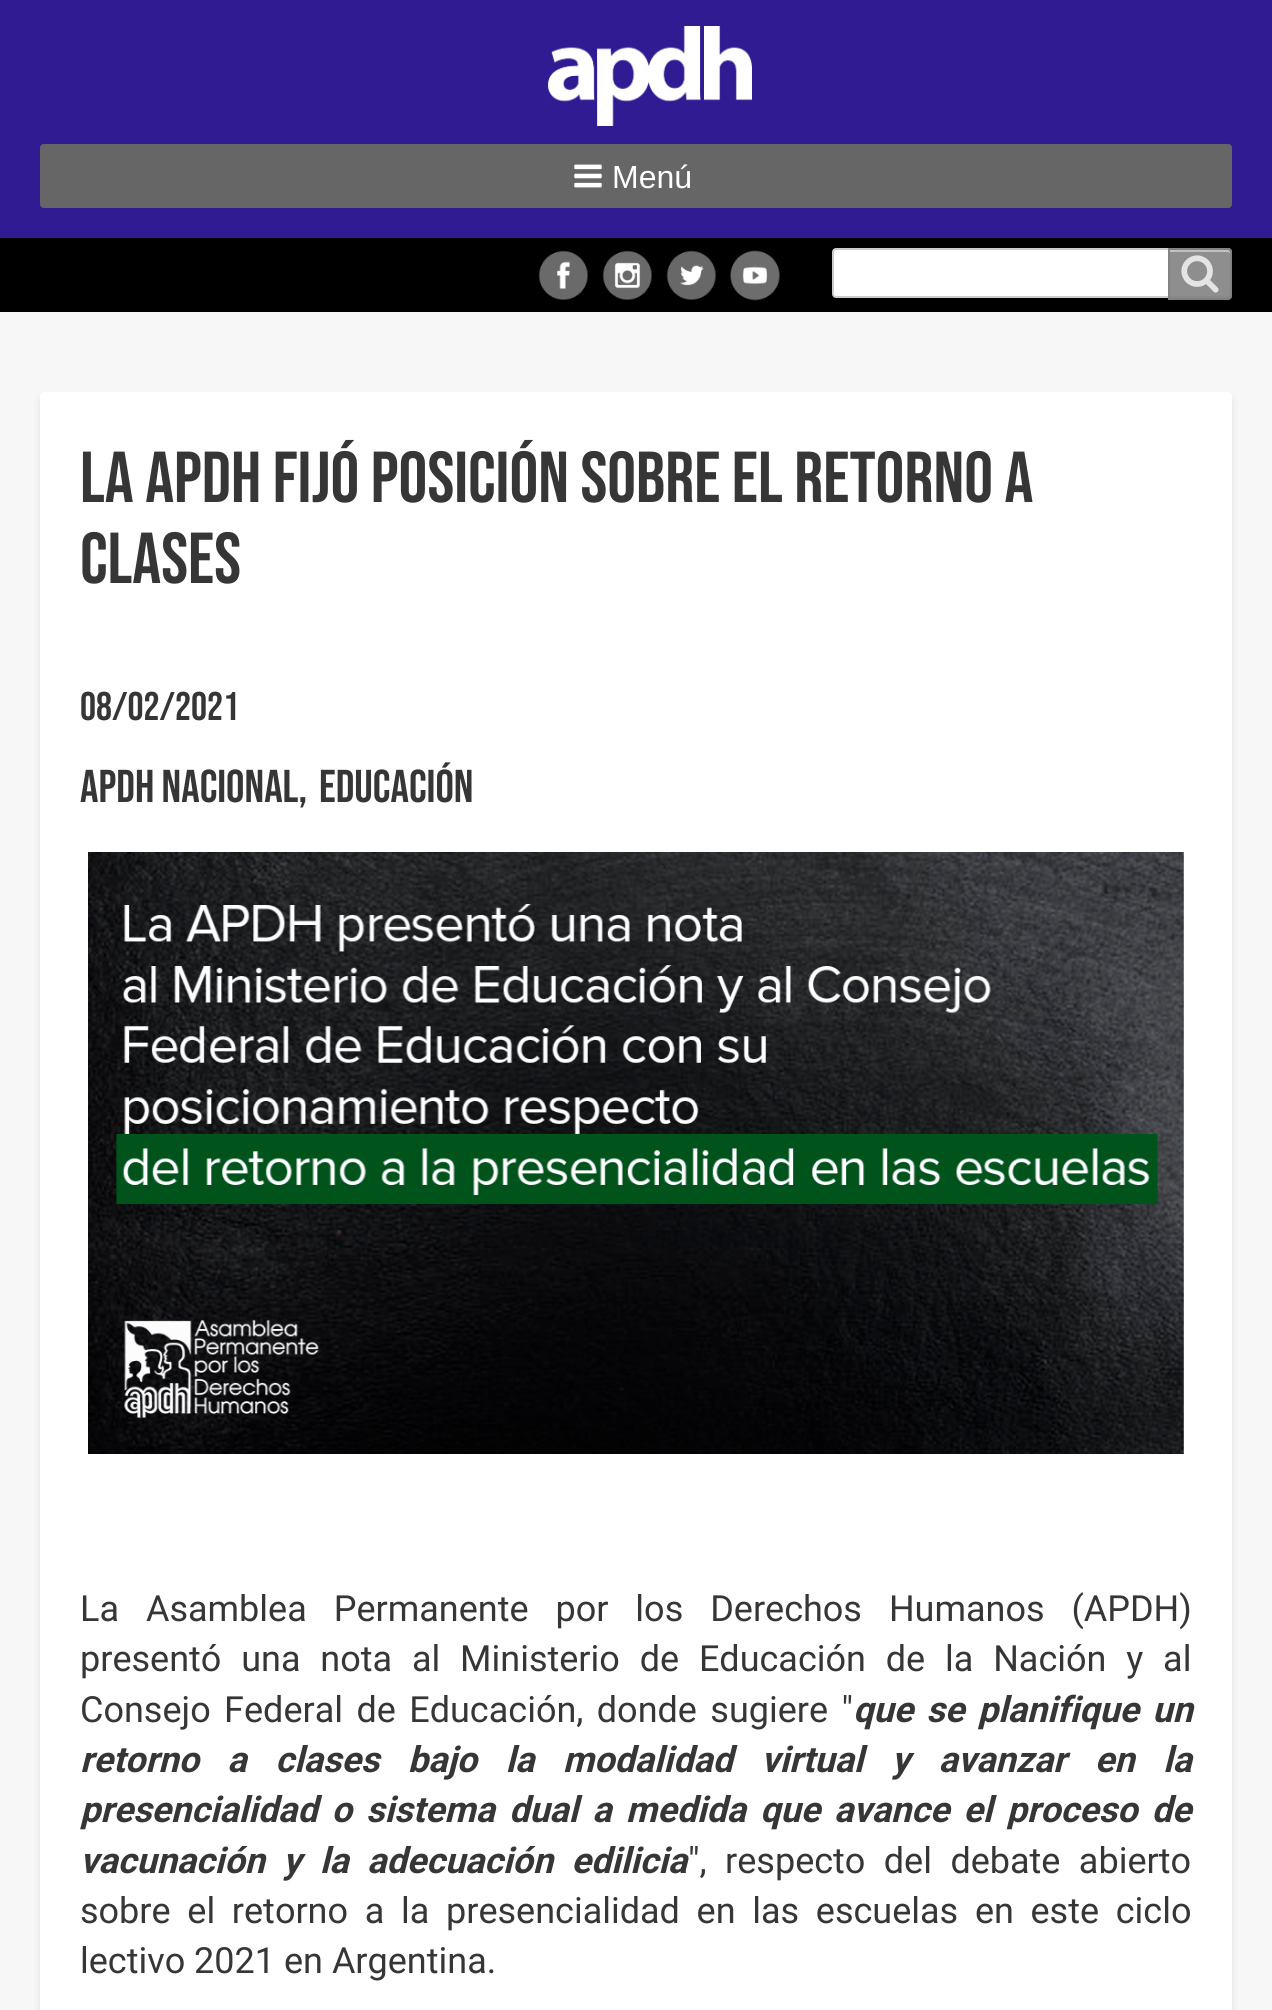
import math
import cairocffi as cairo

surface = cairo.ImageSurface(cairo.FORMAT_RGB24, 1272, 2010)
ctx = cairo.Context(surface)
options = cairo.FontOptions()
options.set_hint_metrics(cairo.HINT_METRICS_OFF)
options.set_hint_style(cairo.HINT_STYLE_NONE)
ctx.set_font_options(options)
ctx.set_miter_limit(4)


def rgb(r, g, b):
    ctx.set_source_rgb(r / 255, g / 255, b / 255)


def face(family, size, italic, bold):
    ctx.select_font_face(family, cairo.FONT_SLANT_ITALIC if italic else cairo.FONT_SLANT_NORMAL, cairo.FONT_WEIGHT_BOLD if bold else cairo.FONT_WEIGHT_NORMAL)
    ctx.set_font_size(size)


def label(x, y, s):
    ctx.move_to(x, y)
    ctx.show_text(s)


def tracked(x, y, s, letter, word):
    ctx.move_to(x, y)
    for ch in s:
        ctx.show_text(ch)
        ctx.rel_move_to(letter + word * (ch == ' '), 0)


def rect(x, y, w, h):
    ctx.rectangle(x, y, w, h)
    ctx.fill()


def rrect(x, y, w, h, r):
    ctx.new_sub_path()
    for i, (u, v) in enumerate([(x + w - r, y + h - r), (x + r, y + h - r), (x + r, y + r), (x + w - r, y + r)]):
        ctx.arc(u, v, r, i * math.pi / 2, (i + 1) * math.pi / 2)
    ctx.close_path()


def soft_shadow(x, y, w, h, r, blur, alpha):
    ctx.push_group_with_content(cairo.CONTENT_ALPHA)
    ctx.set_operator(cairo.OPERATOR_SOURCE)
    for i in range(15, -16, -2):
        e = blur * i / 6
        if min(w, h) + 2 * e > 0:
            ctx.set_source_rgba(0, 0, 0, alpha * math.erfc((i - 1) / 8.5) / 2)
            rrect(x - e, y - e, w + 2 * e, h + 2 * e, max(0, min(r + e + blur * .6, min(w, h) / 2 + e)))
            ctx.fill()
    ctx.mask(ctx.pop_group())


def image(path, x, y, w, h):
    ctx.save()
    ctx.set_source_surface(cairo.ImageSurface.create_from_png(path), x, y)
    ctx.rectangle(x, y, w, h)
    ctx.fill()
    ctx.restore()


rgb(247, 247, 247)
ctx.paint()
rgb(49, 27, 146)
rect(0, 0, 1272, 238)
image('image0.png', 548, 26, 204, 100)
rgb(102, 102, 102)
rrect(40, 144, 1192, 64, 4)
ctx.fill()
image('image1.png', 574, 164, 28, 24)
face('Liberation Sans', 32, 0, 0)
rgb(255, 255, 255)
label(612, 188, 'Menú')
rgb(0, 0, 0)
rect(0, 238, 1272, 74)
image('image2.png', 538, 250, 50, 50)
image('image3.png', 602, 250, 50, 50)
image('image4.png', 666, 250, 50, 50)
image('image5.png', 730, 250, 50, 51)
rgb(255, 255, 255)
rrect(833, 249, 398, 48, 3)
ctx.fill_preserve()
rgb(204, 204, 204)
ctx.stroke()
ctx.set_source_rgba(0.51, 0.51, 0.51, 0.9)
ctx.new_path()
ctx.move_to(1168, 248)
ctx.line_to(1228, 248)
ctx.curve_to(1230, 248, 1232, 250, 1232, 252)
ctx.line_to(1232, 296)
ctx.curve_to(1232, 298, 1230, 300, 1228, 300)
ctx.line_to(1168, 300)
ctx.close_path()
ctx.fill()
image('image6.png', 1181, 255, 38, 38)
rgb(193, 193, 193)
ctx.new_path()
ctx.move_to(1170, 252)
ctx.line_to(1228, 252)
ctx.curve_to(1229, 252, 1230, 253, 1230, 254)
ctx.line_to(1230, 252)
ctx.curve_to(1230, 251, 1229, 250, 1228, 250)
ctx.line_to(1170, 250)
ctx.close_path()
ctx.fill()
ctx.new_path()
ctx.move_to(1169, 249)
ctx.line_to(1228, 249)
ctx.curve_to(1229.5, 249, 1231, 250.5, 1231, 252)
ctx.line_to(1231, 296)
ctx.curve_to(1231, 297.5, 1229.5, 299, 1228, 299)
ctx.line_to(1169, 299)
ctx.close_path()
ctx.set_source_rgba(0.51, 0.51, 0.51, 0.9)
ctx.stroke()
rgb(0, 0, 0)
soft_shadow(40, 398, 1192, 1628, 4, 4, 0.1)
rgb(255, 255, 255)
rrect(40, 392, 1192, 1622, 4)
ctx.fill()
face('Bebas Neue', 72, 0, 0)
rgb(54, 54, 54)
label(80, 502, 'La APDH fijó posición sobre el retorno a')
label(80, 583, 'clases')
face('Bebas Neue', 40, 0, 0)
label(80, 720, '08/02/2021')
face('Bebas Neue', 46, 0, 0)
label(80, 802, 'APDH Nacional,')
label(319, 802, 'Educación')
image('image7.png', 88, 852, 1096, 602)
face('Roboto', 36, 0, 0)
tracked(80, 1621, 'La Asamblea Permanente por los Derechos Humanos (APDH)', 0, 18)
tracked(80, 1671, 'presentó una nota al Ministerio de Educación de la Nación y al', 0, 10.9)
tracked(80, 1722, 'Consejo Federal de Educación, donde sugiere "', 0, 4.5)
face('Roboto', 36, 1, 1)
tracked(853, 1722, 'que se planifique un', 0, 4.5)
tracked(80, 1772, 'retorno a clases bajo la modalidad virtual y avanzar en la', 0, 19.6)
tracked(80, 1822, 'presencialidad o sistema dual a medida que avance el proceso de', 0, 5.25)
tracked(80, 1873, 'vacunación y la adecuación edilicia', 0, 9.5)
face('Roboto', 36, 0, 0)
tracked(688, 1873, '", respecto del debate abierto', 0, 9.5)
tracked(80, 1923, 'sobre el retorno a la presencialidad en las escuelas en este ciclo', 0, 7.75)
label(80, 1973, 'lectivo 2021 en Argentina.')
surface.write_to_png('render.png')
